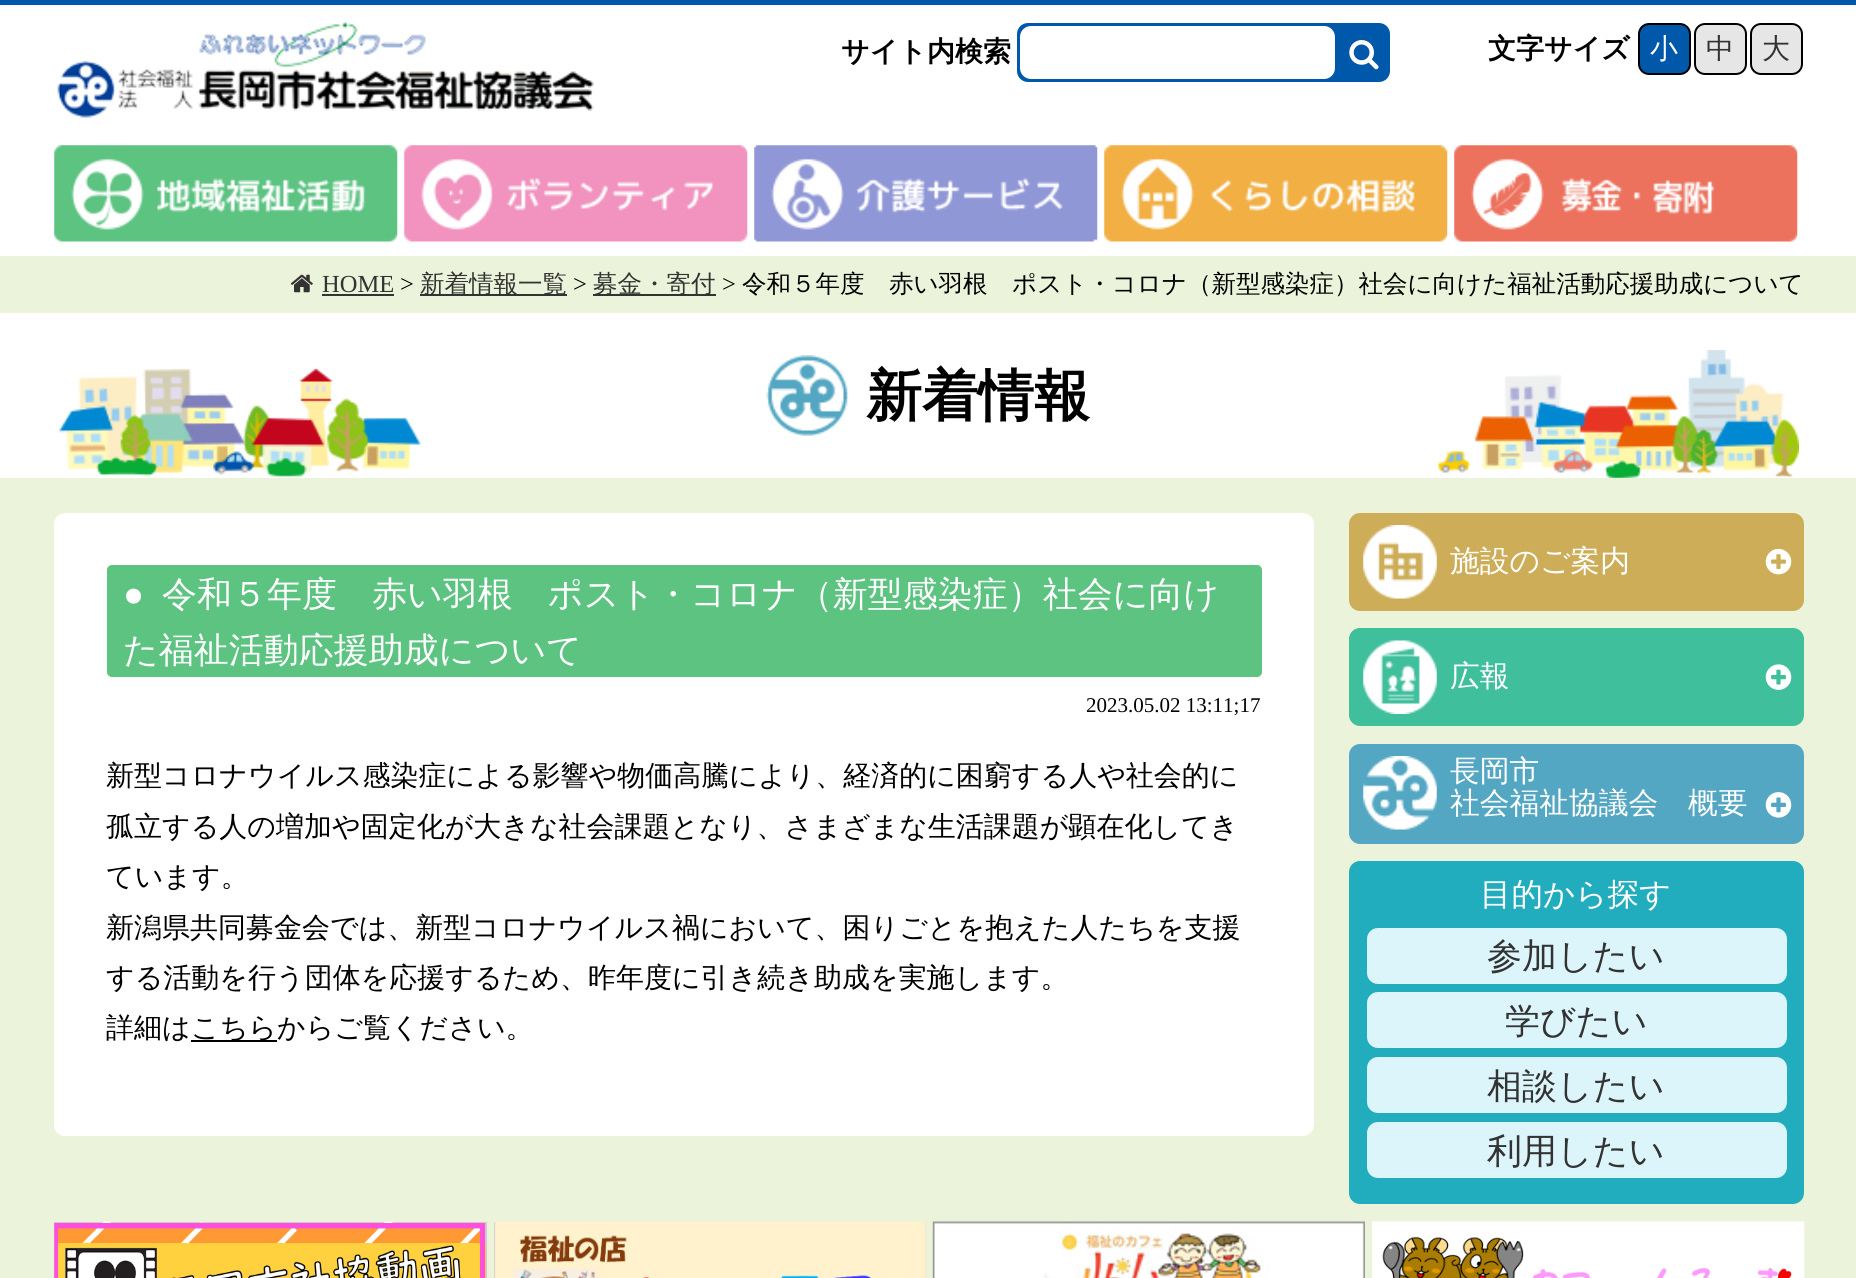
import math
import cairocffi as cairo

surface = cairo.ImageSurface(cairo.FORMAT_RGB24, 1856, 1278)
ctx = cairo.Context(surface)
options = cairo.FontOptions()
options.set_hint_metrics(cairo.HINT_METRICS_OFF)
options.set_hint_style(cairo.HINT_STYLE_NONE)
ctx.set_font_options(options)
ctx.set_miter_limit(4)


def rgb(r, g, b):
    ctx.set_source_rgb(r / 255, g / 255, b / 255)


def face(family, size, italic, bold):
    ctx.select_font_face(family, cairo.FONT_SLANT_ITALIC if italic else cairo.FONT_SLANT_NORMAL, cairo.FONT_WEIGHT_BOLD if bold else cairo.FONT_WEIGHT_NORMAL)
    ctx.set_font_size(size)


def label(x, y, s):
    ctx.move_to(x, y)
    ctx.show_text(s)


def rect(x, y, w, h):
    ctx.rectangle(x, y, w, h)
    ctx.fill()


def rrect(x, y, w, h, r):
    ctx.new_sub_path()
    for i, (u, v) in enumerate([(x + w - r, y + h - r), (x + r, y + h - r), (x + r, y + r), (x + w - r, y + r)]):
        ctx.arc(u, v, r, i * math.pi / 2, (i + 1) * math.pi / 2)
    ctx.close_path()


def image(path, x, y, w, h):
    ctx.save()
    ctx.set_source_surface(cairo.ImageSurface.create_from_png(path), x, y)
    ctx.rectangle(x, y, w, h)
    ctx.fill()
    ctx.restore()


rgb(255, 255, 255)
ctx.paint()
rgb(0, 88, 170)
rect(0, 0, 1856, 5)
image('image0.png', 57, 22, 537, 96)
face('WenQuanYi Zen Hei', 28, 0, 1)
rgb(0, 0, 0)
label(841, 61, 'サイト内検索')
rgb(0, 88, 170)
rrect(1017, 23, 373, 59, 11)
ctx.fill()
rgb(255, 255, 255)
rrect(1020, 26, 315, 53, 11)
ctx.fill()
image('image1.png', 1349, 40, 30, 30)
rgb(0, 0, 0)
label(1488, 58, '文字サイズ')
rgb(0, 88, 170)
rrect(1639, 24, 51, 50, 10)
ctx.fill_preserve()
rgb(0, 0, 0)
ctx.stroke()
face('WenQuanYi Zen Hei Medium', 28, 0, 0)
rgb(255, 255, 255)
label(1650, 58, '小')
rgb(230, 230, 230)
rrect(1695, 24, 51, 50, 10)
ctx.fill_preserve()
rgb(0, 0, 0)
ctx.stroke()
rgb(51, 51, 51)
label(1706, 58, '中')
rgb(230, 230, 230)
rrect(1751, 24, 51, 50, 10)
ctx.fill_preserve()
rgb(0, 0, 0)
ctx.stroke()
rgb(51, 51, 51)
label(1762, 58, '大')
image('image2.png', 54, 145, 344, 97)
image('image3.png', 404, 145, 344, 97)
image('image4.png', 754, 145, 344, 97)
image('image5.png', 1104, 145, 344, 97)
image('image6.png', 1454, 145, 344, 97)
rgb(235, 244, 218)
rect(0, 256, 1856, 57)
image('image7.png', 290, 274, 23, 19)
face('Liberation Serif', 24.5, 0, 0)
rgb(51, 51, 51)
label(322, 292, 'HOME')
rect(322, 294, 72, 2)
rgb(0, 0, 0)
label(400, 292, '>')
rgb(51, 51, 51)
rect(420, 294, 147, 2)
face('WenQuanYi Zen Hei Medium', 24.5, 0, 0)
label(420, 292, '新着情報一覧')
face('Liberation Serif', 24.5, 0, 0)
rgb(0, 0, 0)
label(573, 292, '>')
rgb(51, 51, 51)
rect(593, 294, 123, 2)
face('WenQuanYi Zen Hei Medium', 24.5, 0, 0)
label(593, 292, '募金・寄付')
face('Liberation Serif', 24.5, 0, 0)
rgb(0, 0, 0)
label(722, 292, '>')
face('WenQuanYi Zen Hei Medium', 24.5, 0, 0)
label(742, 292, '令和５年度　赤い羽根　ポスト・コロナ（新型感染症）社会に向けた福祉活動応援助成について')
rgb(235, 244, 218)
rect(0, 478, 1856, 800)
image('image8.png', 59, 350, 1740, 128)
image('image9.png', 766, 355, 82, 81)
face('WenQuanYi Zen Hei', 56, 0, 1)
rgb(0, 0, 0)
label(866, 415, '新着情報')
rgb(255, 255, 255)
rrect(54, 513, 1260, 623, 11)
ctx.fill()
rgb(92, 195, 129)
rrect(107, 565, 1155, 112, 5)
ctx.fill()
face('Liberation Serif', 35, 0, 0)
rgb(255, 255, 255)
label(123, 606, '●')
face('WenQuanYi Zen Hei Medium', 35, 0, 0)
label(162, 606, '令和５年度　赤い羽根　ポスト・コロナ（新型感染症）社会に向け')
label(123, 662, 'た福祉活動応援助成について')
face('Liberation Serif', 21, 0, 0)
rgb(0, 0, 0)
label(1086, 712, '2023.05.02 13:11;17')
face('WenQuanYi Zen Hei Medium', 28, 0, 0)
label(106, 785, '新型コロナウイルス感染症による影響や物価高騰により、経済的に困窮する人や社会的に')
label(106, 836, '孤立する人の増加や固定化が大きな社会課題となり、さまざまな生活課題が顕在化してき')
label(106, 886, 'ています。')
label(106, 937, '新潟県共同募金会では、新型コロナウイルス禍において、困りごとを抱えた人たちを支援')
label(106, 987, 'する活動を行う団体を応援するため、昨年度に引き続き助成を実施します。')
label(106, 1037, '詳細は')
rect(191, 1040, 86, 2)
label(191, 1037, 'こちらからご覧ください。')
rgb(205, 173, 88)
rrect(1349, 513, 455, 98, 11)
ctx.fill()
image('image10.png', 1363, 525, 74, 74)
face('WenQuanYi Zen Hei Medium', 29.75, 0, 0)
rgb(255, 255, 255)
label(1450, 571, '施設のご案内')
image('image11.png', 1765, 548, 27, 27)
rgb(64, 191, 157)
rrect(1349, 628, 455, 98, 11)
ctx.fill()
image('image12.png', 1363, 640, 74, 74)
rgb(255, 255, 255)
label(1450, 686, '広報')
image('image13.png', 1765, 664, 27, 26)
rgb(84, 167, 195)
rrect(1349, 744, 455, 100, 11)
ctx.fill()
image('image14.png', 1363, 756, 74, 74)
rgb(255, 255, 255)
label(1450, 781, '長岡市')
label(1450, 813, '社会福祉協議会　概要')
image('image15.png', 1765, 792, 27, 26)
rgb(34, 173, 190)
rrect(1349, 861, 455, 343, 11)
ctx.fill()
face('WenQuanYi Zen Hei Medium', 31.5, 0, 0)
rgb(255, 255, 255)
label(1480, 905, '目的から探す')
rgb(220, 245, 250)
rrect(1367, 928, 420, 56, 11)
ctx.fill()
face('WenQuanYi Zen Hei Medium', 35, 0, 0)
rgb(51, 51, 51)
label(1487, 968, '参加したい')
rgb(220, 245, 250)
rrect(1367, 992, 420, 56, 11)
ctx.fill()
rgb(51, 51, 51)
label(1505, 1033, '学びたい')
rgb(220, 245, 250)
rrect(1367, 1057, 420, 56, 11)
ctx.fill()
rgb(51, 51, 51)
label(1487, 1098, '相談したい')
rgb(220, 245, 250)
rrect(1367, 1122, 420, 56, 11)
ctx.fill()
rgb(51, 51, 51)
label(1487, 1163, '利用したい')
rgb(204, 204, 204)
rect(54, 1222, 433, 56)
image('image16.png', 54, 1221, 432, 57)
rect(494, 1222, 432, 56)
image('image17.png', 494, 1221, 432, 57)
image('image18.png', 932, 1221, 433, 57)
image('image19.png', 1372, 1221, 433, 57)
surface.write_to_png('render.png')
